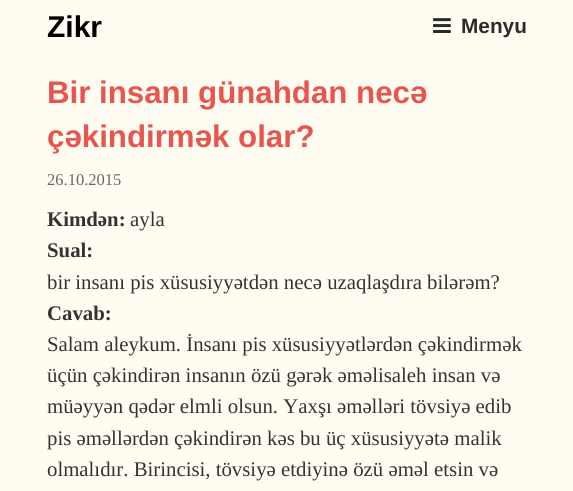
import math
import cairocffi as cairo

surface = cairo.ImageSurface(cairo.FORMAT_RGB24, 573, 491)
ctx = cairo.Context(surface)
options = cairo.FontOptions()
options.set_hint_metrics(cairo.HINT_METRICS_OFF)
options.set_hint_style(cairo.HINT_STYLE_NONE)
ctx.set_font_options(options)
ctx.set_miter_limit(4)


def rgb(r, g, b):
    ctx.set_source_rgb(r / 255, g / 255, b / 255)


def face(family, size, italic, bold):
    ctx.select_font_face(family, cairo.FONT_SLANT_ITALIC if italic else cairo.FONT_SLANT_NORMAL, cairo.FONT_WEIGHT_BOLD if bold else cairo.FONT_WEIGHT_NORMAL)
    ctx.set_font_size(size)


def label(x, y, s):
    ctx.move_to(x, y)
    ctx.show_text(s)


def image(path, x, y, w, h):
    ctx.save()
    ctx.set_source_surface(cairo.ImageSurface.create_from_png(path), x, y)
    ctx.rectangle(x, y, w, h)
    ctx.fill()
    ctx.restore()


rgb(255, 252, 242)
ctx.paint()
face('Liberation Sans', 30, 0, 1)
rgb(0, 0, 0)
label(47, 37, 'Zikr')
image('image0.png', 433, 18, 18, 15)
face('Liberation Sans', 20.8, 0, 1)
rgb(43, 43, 43)
label(461, 33, 'Menyu')
face('Liberation Sans', 31.25, 0, 1)
rgb(232, 85, 78)
label(47, 103, 'Bir insanı günahdan necə')
label(47, 147, 'çəkindirmək olar?')
face('Liberation Serif', 16.5, 0, 0)
rgb(102, 102, 102)
label(47, 185, '26.10.2015')
face('Liberation Serif', 20.8, 0, 1)
rgb(51, 51, 51)
label(47, 226, 'Kimdən:')
face('Liberation Serif', 20.8, 0, 0)
label(130, 226, 'ayla')
face('Liberation Serif', 20.8, 0, 1)
label(47, 257, 'Sual:')
face('Liberation Serif', 20.8, 0, 0)
label(47, 289, 'bir insanı pis xüsusiyyətdən necə uzaqlaşdıra bilərəm?')
face('Liberation Serif', 20.8, 0, 1)
label(47, 320, 'Cavab:')
face('Liberation Serif', 20.8, 0, 0)
label(47, 351, 'Salam aleykum. İnsanı pis xüsusiyyətlərdən çəkindirmək')
label(47, 382, 'üçün çəkindirən insanın özü gərək əməlisaleh insan və')
label(47, 413, 'müəyyən qədər elmli olsun. Yaxşı əməlləri tövsiyə edib')
label(47, 445, 'pis əməllərdən çəkindirən kəs bu üç xüsusiyyətə malik')
label(47, 476, 'olmalıdır. Birincisi, tövsiyə etdiyinə özü əməl etsin və')
surface.write_to_png('render.png')
